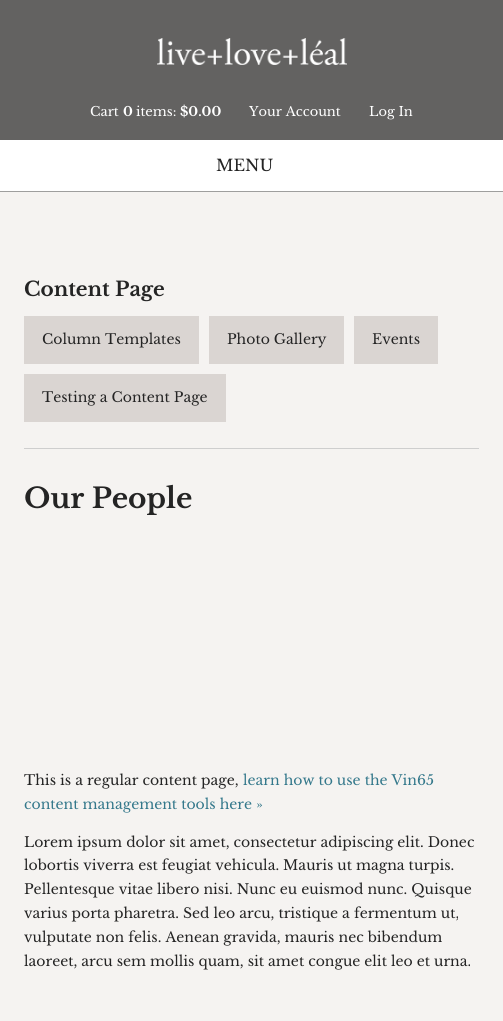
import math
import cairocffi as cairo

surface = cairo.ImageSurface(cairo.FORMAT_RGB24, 503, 1021)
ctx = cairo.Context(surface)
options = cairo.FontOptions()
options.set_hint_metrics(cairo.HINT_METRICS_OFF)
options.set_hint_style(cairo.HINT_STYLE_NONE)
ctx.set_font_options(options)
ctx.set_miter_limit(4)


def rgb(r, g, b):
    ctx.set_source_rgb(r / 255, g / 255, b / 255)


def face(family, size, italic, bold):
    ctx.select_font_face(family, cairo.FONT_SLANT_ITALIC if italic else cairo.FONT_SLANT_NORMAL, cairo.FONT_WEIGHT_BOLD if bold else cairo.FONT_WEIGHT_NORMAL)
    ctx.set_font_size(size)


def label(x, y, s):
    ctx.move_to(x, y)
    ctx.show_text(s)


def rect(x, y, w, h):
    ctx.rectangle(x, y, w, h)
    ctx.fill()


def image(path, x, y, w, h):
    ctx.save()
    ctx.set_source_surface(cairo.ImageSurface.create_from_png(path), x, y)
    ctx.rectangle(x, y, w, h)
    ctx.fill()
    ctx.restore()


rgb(245, 243, 241)
ctx.paint()
rgb(99, 98, 97)
rect(0, 0, 503, 140)
image('image0.png', 157, 38, 190, 27)
face('Libre Baskerville', 13, 0, 0)
rgb(255, 255, 255)
label(90, 116, 'Cart')
face('Libre Baskerville', 13, 0, 1)
label(123, 116, '0')
face('Libre Baskerville', 13, 0, 0)
label(136, 116, 'items:')
face('Libre Baskerville', 13, 0, 1)
label(180, 116, '$0.00')
face('Libre Baskerville', 13, 0, 0)
label(249, 116, 'Your Account')
label(369, 116, 'Log In')
rect(0, 140, 503, 51)
rgb(158, 158, 158)
rect(0, 191, 503, 1)
face('Libre Baskerville', 16, 0, 0)
rgb(36, 36, 36)
label(216, 171, 'MENU')
rgb(206, 206, 206)
rect(24, 448, 455, 1)
face('Libre Baskerville', 20, 0, 1)
rgb(36, 36, 36)
label(24, 296, 'Content Page')
rgb(218, 213, 210)
rect(24, 316, 175, 48)
face('Libre Baskerville', 14, 0, 0)
rgb(36, 36, 36)
label(42, 344, 'Column Templates')
rgb(218, 213, 210)
rect(209, 316, 135, 48)
rgb(36, 36, 36)
label(227, 344, 'Photo Gallery')
rgb(218, 213, 210)
rect(354, 316, 84, 48)
rgb(36, 36, 36)
label(372, 344, 'Events')
rgb(218, 213, 210)
rect(24, 374, 202, 48)
rgb(36, 36, 36)
label(42, 402, 'Testing a Content Page')
face('Libre Baskerville', 28, 0, 1)
label(24, 508, 'Our People')
face('Libre Baskerville', 14, 0, 0)
label(24, 785, 'This is a regular content page,')
rgb(52, 120, 139)
label(243, 785, 'learn how to use the Vin65')
label(24, 809, 'content management tools here »')
rgb(36, 36, 36)
label(24, 847, 'Lorem ipsum dolor sit amet, consectetur adipiscing elit. Donec')
label(24, 870, 'lobortis viverra est feugiat vehicula. Mauris ut magna turpis.')
label(24, 894, 'Pellentesque vitae libero nisi. Nunc eu euismod nunc. Quisque')
label(24, 918, 'varius porta pharetra. Sed leo arcu, tristique a fermentum ut,')
label(24, 942, 'vulputate non felis. Aenean gravida, mauris nec bibendum')
label(24, 966, 'laoreet, arcu sem mollis quam, sit amet congue elit leo et urna.')
surface.write_to_png('render.png')
